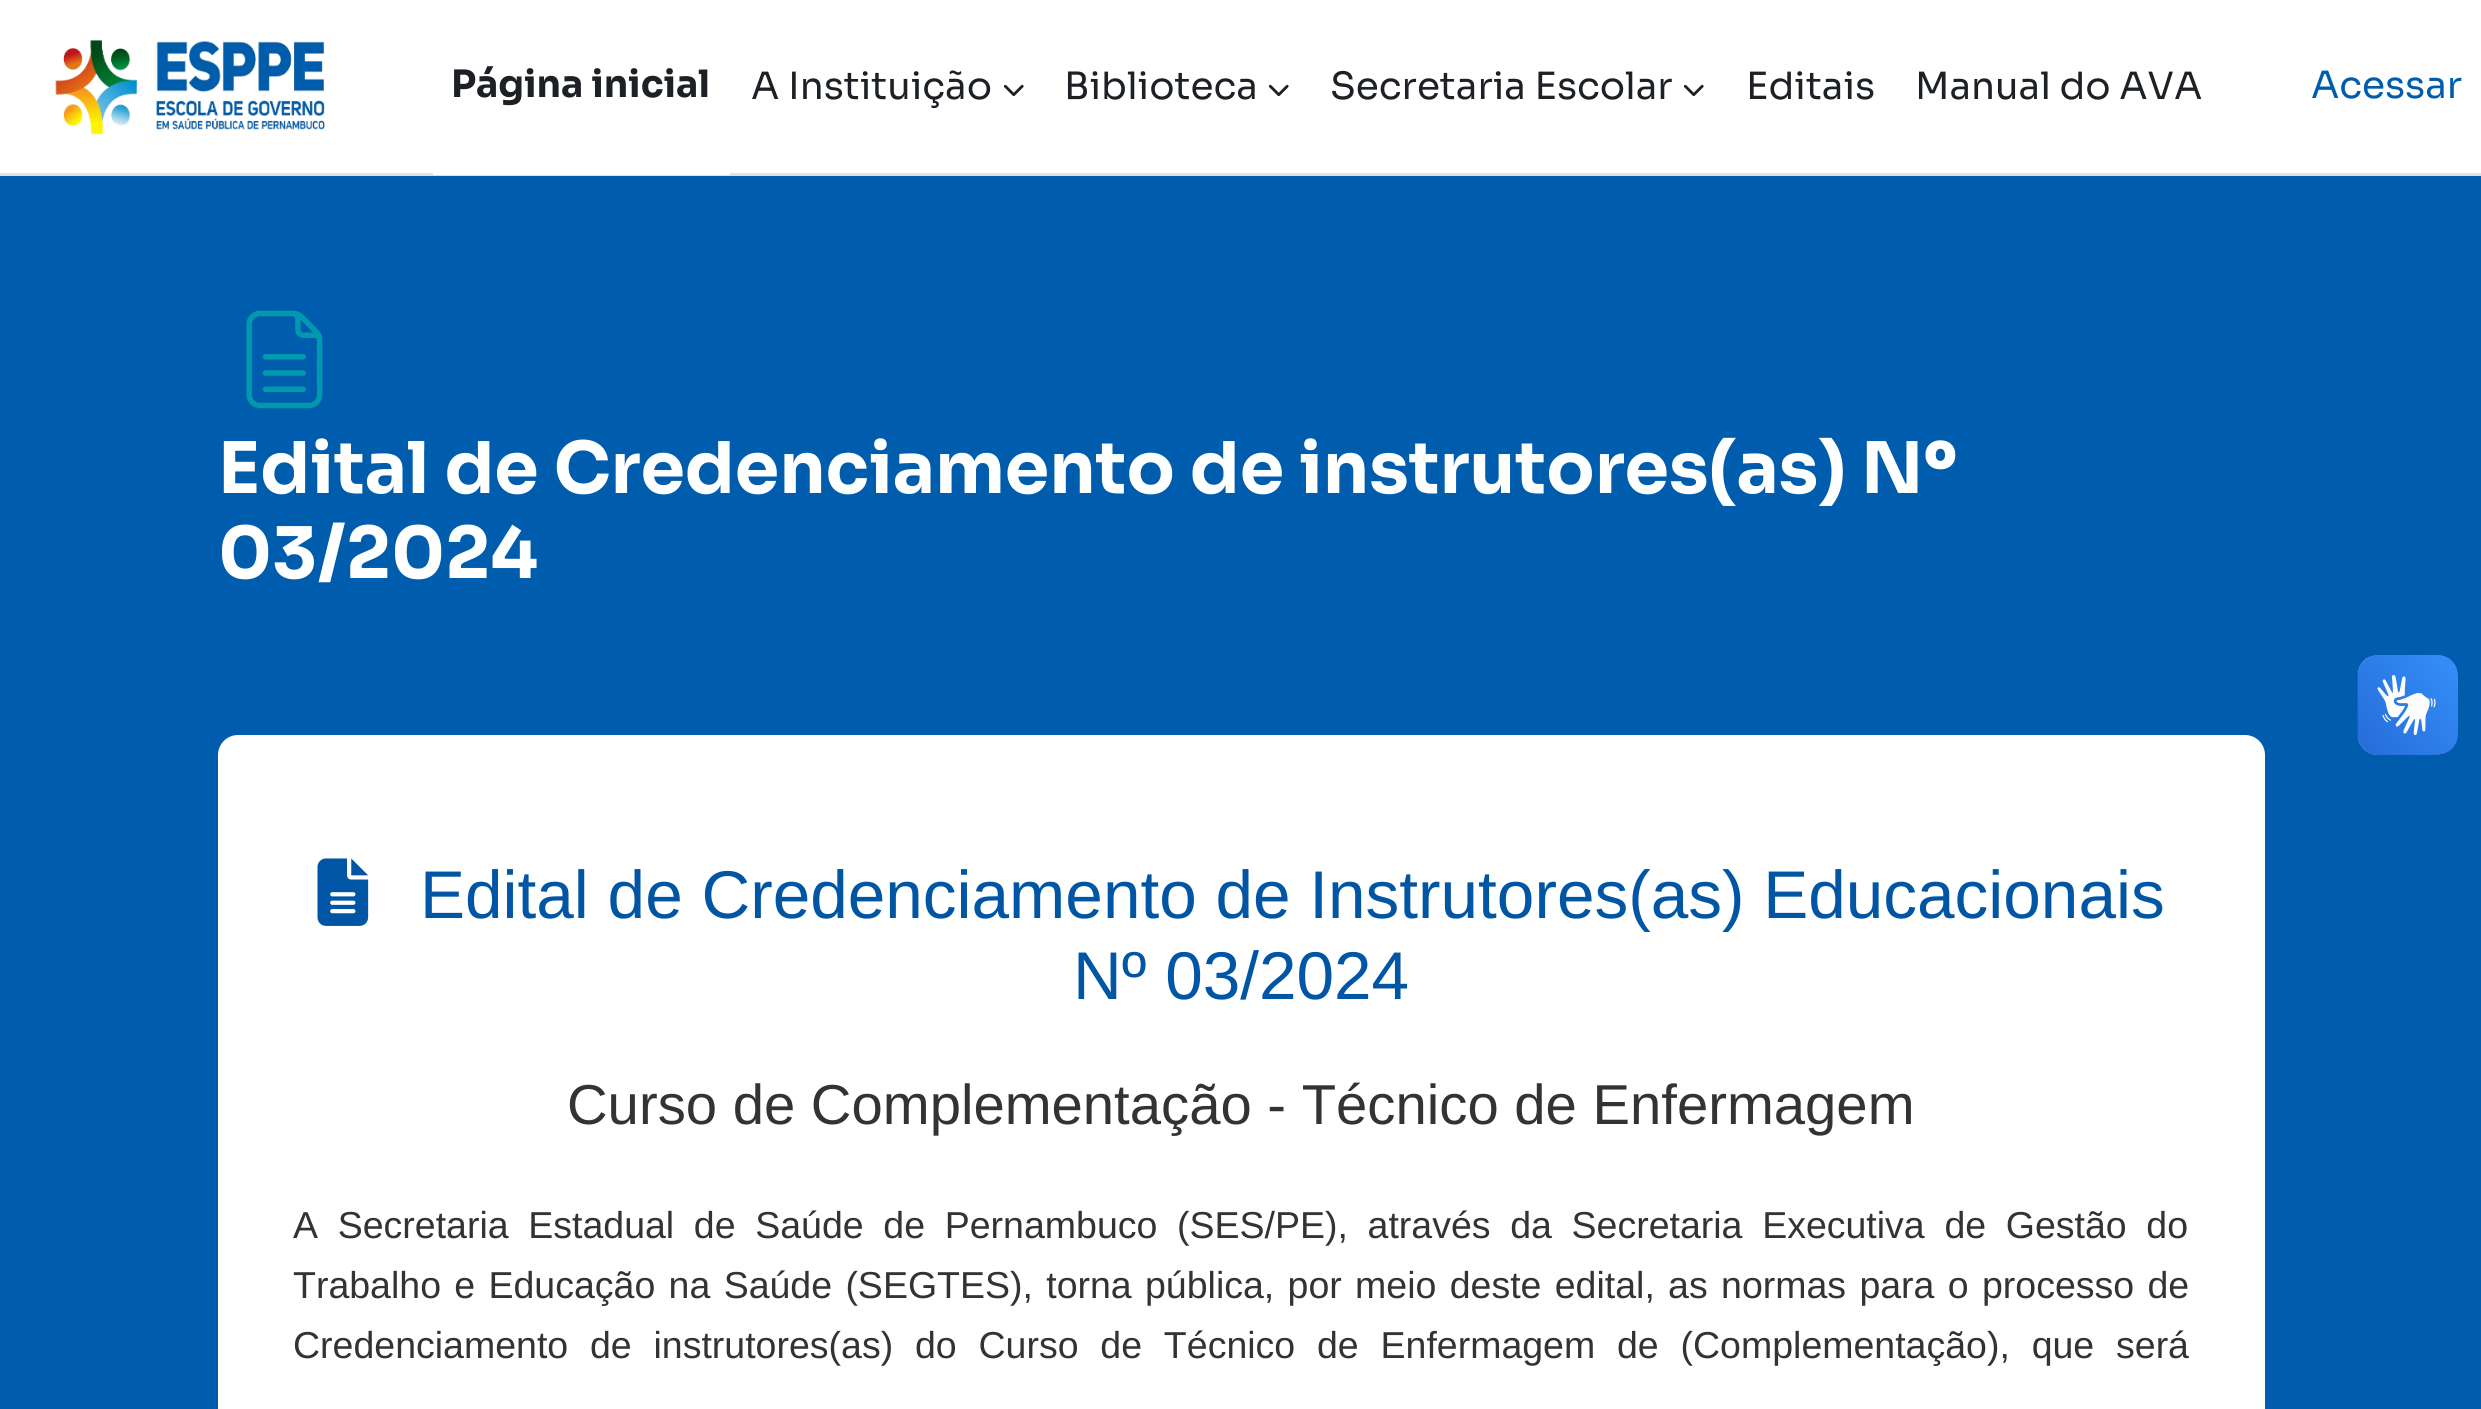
import math
import cairocffi as cairo

surface = cairo.ImageSurface(cairo.FORMAT_RGB24, 2481, 1409)
ctx = cairo.Context(surface)
options = cairo.FontOptions()
options.set_hint_metrics(cairo.HINT_METRICS_OFF)
options.set_hint_style(cairo.HINT_STYLE_NONE)
ctx.set_font_options(options)
ctx.set_miter_limit(4)


def rgb(r, g, b):
    ctx.set_source_rgb(r / 255, g / 255, b / 255)


def face(family, size, italic, bold):
    ctx.select_font_face(family, cairo.FONT_SLANT_ITALIC if italic else cairo.FONT_SLANT_NORMAL, cairo.FONT_WEIGHT_BOLD if bold else cairo.FONT_WEIGHT_NORMAL)
    ctx.set_font_size(size)


def label(x, y, s):
    ctx.move_to(x, y)
    ctx.show_text(s)


def tracked(x, y, s, letter, word):
    ctx.move_to(x, y)
    for ch in s:
        ctx.show_text(ch)
        ctx.rel_move_to(letter + word * (ch == ' '), 0)


def rect(x, y, w, h):
    ctx.rectangle(x, y, w, h)
    ctx.fill()


def rrect(x, y, w, h, r):
    ctx.new_sub_path()
    for i, (u, v) in enumerate([(x + w - r, y + h - r), (x + r, y + h - r), (x + r, y + r), (x + w - r, y + r)]):
        ctx.arc(u, v, r, i * math.pi / 2, (i + 1) * math.pi / 2)
    ctx.close_path()


def image(path, x, y, w, h):
    ctx.save()
    ctx.set_source_surface(cairo.ImageSurface.create_from_png(path), x, y)
    ctx.rectangle(x, y, w, h)
    ctx.fill()
    ctx.restore()


rgb(0, 92, 172)
ctx.paint()
rgb(255, 255, 255)
rect(0, 0, 2481, 173)
rgb(222, 226, 230)
rect(0, 173, 2481, 3)
image('image0.png', 55, 40, 270, 95)
rgb(255, 255, 255)
rect(433, 173, 297, 2)
face('Sora', 37.5, 0, 1)
rgb(29, 33, 37)
label(451, 97, 'Página inicial')
face('Sora', 37.5, 0, 0)
label(751, 99, 'A Instituição')
image('image1.png', 1003, 84, 21, 13)
label(1064, 99, 'Biblioteca')
image('image1.png', 1268, 84, 21, 13)
label(1330, 99, 'Secretaria Escolar')
image('image1.png', 1683, 84, 21, 13)
label(1746, 99, 'Editais')
label(1915, 99, 'Manual do AVA')
rgb(0, 92, 172)
label(2311, 98, 'Acessar')
image('image2.png', 246, 310, 77, 99)
face('Sora', 71.1, 0, 1)
rgb(255, 255, 255)
label(218, 493, 'Edital de Credenciamento de instrutores(as) Nº')
label(218, 578, '03/2024')
rrect(218, 735, 2047, 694, 20)
ctx.fill()
image('image3.png', 317, 858, 52, 68)
face('Liberation Sans', 67.5, 0, 0)
rgb(0, 85, 165)
label(420, 918, 'Edital de Credenciamento de Instrutores(as) Educacionais')
label(1073, 999, 'Nº 03/2024')
face('Liberation Sans', 56.25, 0, 0)
rgb(51, 51, 51)
label(567, 1124, 'Curso de Complementação - Técnico de Enfermagem')
face('Liberation Sans', 37.5, 0, 0)
tracked(293, 1238, 'A Secretaria Estadual de Saúde de Pernambuco (SES/PE), através da Secretaria Executiva de Gestão do', 0, 9.25)
tracked(293, 1298, 'Trabalho e Educação na Saúde (SEGTES), torna pública, por meio deste edital, as normas para o processo de', 0, 2.9)
tracked(293, 1358, 'Credenciamento de instrutores(as) do Curso de Técnico de Enfermagem de (Complementação), que será', 0, 11.4)
image('image4.png', 2357, 655, 101, 100)
image('image5.png', 2358, 655, 100, 100)
surface.write_to_png('render.png')
